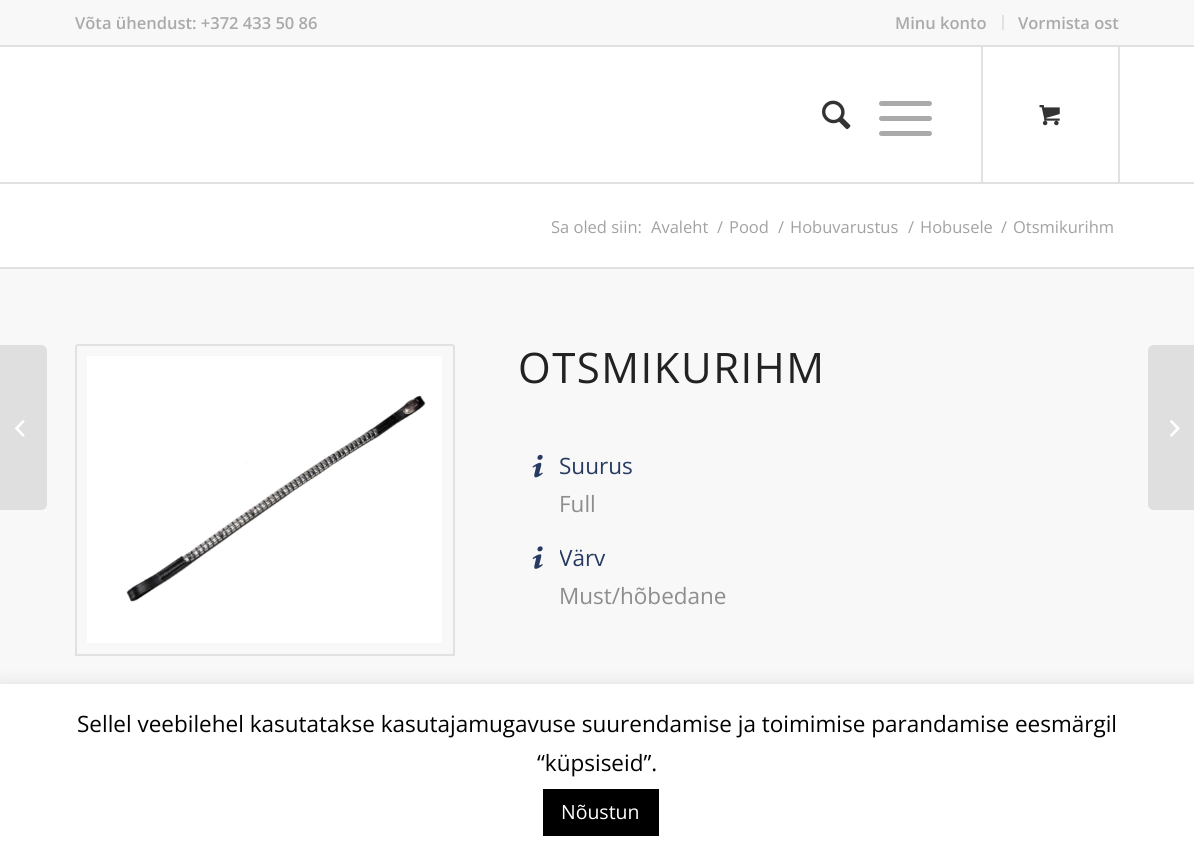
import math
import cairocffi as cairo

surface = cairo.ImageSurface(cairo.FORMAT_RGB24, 1194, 853)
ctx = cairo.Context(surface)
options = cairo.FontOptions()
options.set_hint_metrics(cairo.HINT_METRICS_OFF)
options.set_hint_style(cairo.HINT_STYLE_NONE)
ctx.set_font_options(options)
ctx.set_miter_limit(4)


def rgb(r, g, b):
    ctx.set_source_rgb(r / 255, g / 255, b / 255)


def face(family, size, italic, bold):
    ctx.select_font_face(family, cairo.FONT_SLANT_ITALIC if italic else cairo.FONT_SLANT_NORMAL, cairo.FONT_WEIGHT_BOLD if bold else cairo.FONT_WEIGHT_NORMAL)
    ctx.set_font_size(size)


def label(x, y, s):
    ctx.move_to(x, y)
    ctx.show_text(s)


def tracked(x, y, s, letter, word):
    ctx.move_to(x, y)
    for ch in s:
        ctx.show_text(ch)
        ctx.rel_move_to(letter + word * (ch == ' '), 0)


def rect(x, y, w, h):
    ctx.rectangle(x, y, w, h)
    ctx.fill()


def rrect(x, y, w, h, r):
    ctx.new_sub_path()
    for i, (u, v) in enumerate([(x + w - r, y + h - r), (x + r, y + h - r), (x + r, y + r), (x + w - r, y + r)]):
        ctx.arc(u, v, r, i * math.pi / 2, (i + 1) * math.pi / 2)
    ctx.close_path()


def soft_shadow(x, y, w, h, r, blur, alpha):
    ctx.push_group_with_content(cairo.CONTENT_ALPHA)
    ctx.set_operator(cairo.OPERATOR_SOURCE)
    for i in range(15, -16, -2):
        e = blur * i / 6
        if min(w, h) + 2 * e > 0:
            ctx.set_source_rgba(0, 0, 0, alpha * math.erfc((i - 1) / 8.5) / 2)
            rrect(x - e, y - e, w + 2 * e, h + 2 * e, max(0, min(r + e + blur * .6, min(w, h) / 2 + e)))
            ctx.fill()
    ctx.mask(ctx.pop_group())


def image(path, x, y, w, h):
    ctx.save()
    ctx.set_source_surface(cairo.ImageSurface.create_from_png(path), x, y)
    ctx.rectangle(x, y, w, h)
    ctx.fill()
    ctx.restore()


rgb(255, 255, 255)
ctx.paint()
rgb(248, 248, 248)
rect(0, 0, 1194, 45)
rgb(225, 225, 225)
rect(0, 45, 1194, 2)
face('Open Sans SemiBold', 16.5, 0, 0)
rgb(170, 170, 170)
label(75, 29, 'Võta ühendust: +372 433 50 86')
rgb(225, 225, 225)
rect(1002, 15, 2, 15)
rgb(170, 170, 170)
label(895, 29, 'Minu konto')
label(1018, 29, 'Vormista ost')
rgb(225, 225, 225)
rect(0, 182, 1194, 2)
image('image0.png', 822, 100, 29, 30)
rgb(170, 170, 170)
rrect(879, 116, 53, 5, 2.5)
ctx.fill()
rrect(879, 101, 53, 5, 2.5)
ctx.fill()
rrect(879, 131, 53, 5, 2.5)
ctx.fill()
rgb(225, 225, 225)
rect(1118, 47, 2, 135)
rect(981, 47, 2, 135)
image('image1.png', 1039, 105, 21, 21)
rgb(248, 248, 248)
rect(0, 269, 1194, 415)
rgb(223, 223, 223)
ctx.new_path()
ctx.move_to(0, 345)
ctx.line_to(41, 345)
ctx.curve_to(44.5, 345, 47, 347.5, 47, 351)
ctx.line_to(47, 504)
ctx.curve_to(47, 507.5, 44.5, 510, 41, 510)
ctx.line_to(0, 510)
ctx.close_path()
ctx.fill()
image('image2.png', 15, 420, 10, 17)
face('Open Sans', 16.5, 0, 0)
rgb(162, 162, 162)
label(551, 233, 'Sa oled siin:')
label(651, 233, 'Avaleht')
label(717, 233, '/')
label(729, 233, 'Pood')
label(778, 233, '/')
label(790, 233, 'Hobuvarustus')
label(908, 233, '/')
label(920, 233, 'Hobusele')
label(1001, 233, '/')
label(1013, 233, 'Otsmikurihm')
rgb(225, 225, 225)
rect(0, 267, 1194, 2)
ctx.new_path()
ctx.move_to(78, 345)
ctx.line_to(452, 345)
ctx.curve_to(453, 345, 454, 346, 454, 347)
ctx.line_to(454, 655)
ctx.line_to(76, 655)
ctx.line_to(76, 347)
ctx.curve_to(76, 346, 77, 345, 78, 345)
ctx.close_path()
ctx.stroke()
image('image3.png', 87, 356, 355, 287)
face('Open Sans', 42, 0, 0)
rgb(34, 34, 34)
tracked(518, 383, 'OTSMIKURIHM', 1.5, 0)
image('image4.png', 532, 454, 11, 24)
face('Open Sans', 22.5, 0, 0)
rgb(39, 58, 96)
label(559, 474, 'Suurus')
rgb(141, 141, 141)
label(559, 512, 'Full')
image('image5.png', 532, 546, 11, 23)
ctx.save()
ctx.rectangle(560, 542, 559, 91)
ctx.clip()
rgb(39, 58, 96)
label(559, 566, 'Värv')
ctx.restore()
label(559, 604, 'Must/hõbedane')
rgb(223, 223, 223)
ctx.new_path()
ctx.move_to(1154, 345)
ctx.line_to(1194, 345)
ctx.line_to(1194, 510)
ctx.line_to(1154, 510)
ctx.curve_to(1150.5, 510, 1148, 507.5, 1148, 504)
ctx.line_to(1148, 351)
ctx.curve_to(1148, 347.5, 1150.5, 345, 1154, 345)
ctx.close_path()
ctx.fill()
image('image6.png', 1170, 420, 10, 17)
rgb(172, 171, 171)
soft_shadow(0, 683, 1194, 169, 0, 7.5, 0.3)
rgb(255, 255, 255)
rect(0, 684, 1194, 169)
rgb(0, 0, 0)
label(77, 732, 'Sellel veebilehel kasutatakse kasutajamugavuse suurendamise ja toimimise parandamise eesmärgil')
label(537, 771, '“küpsiseid”.')
rect(543, 789, 116, 47)
face('Open Sans', 19.5, 0, 0)
rgb(255, 255, 255)
label(561, 819, 'Nõustun')
surface.write_to_png('render.png')
